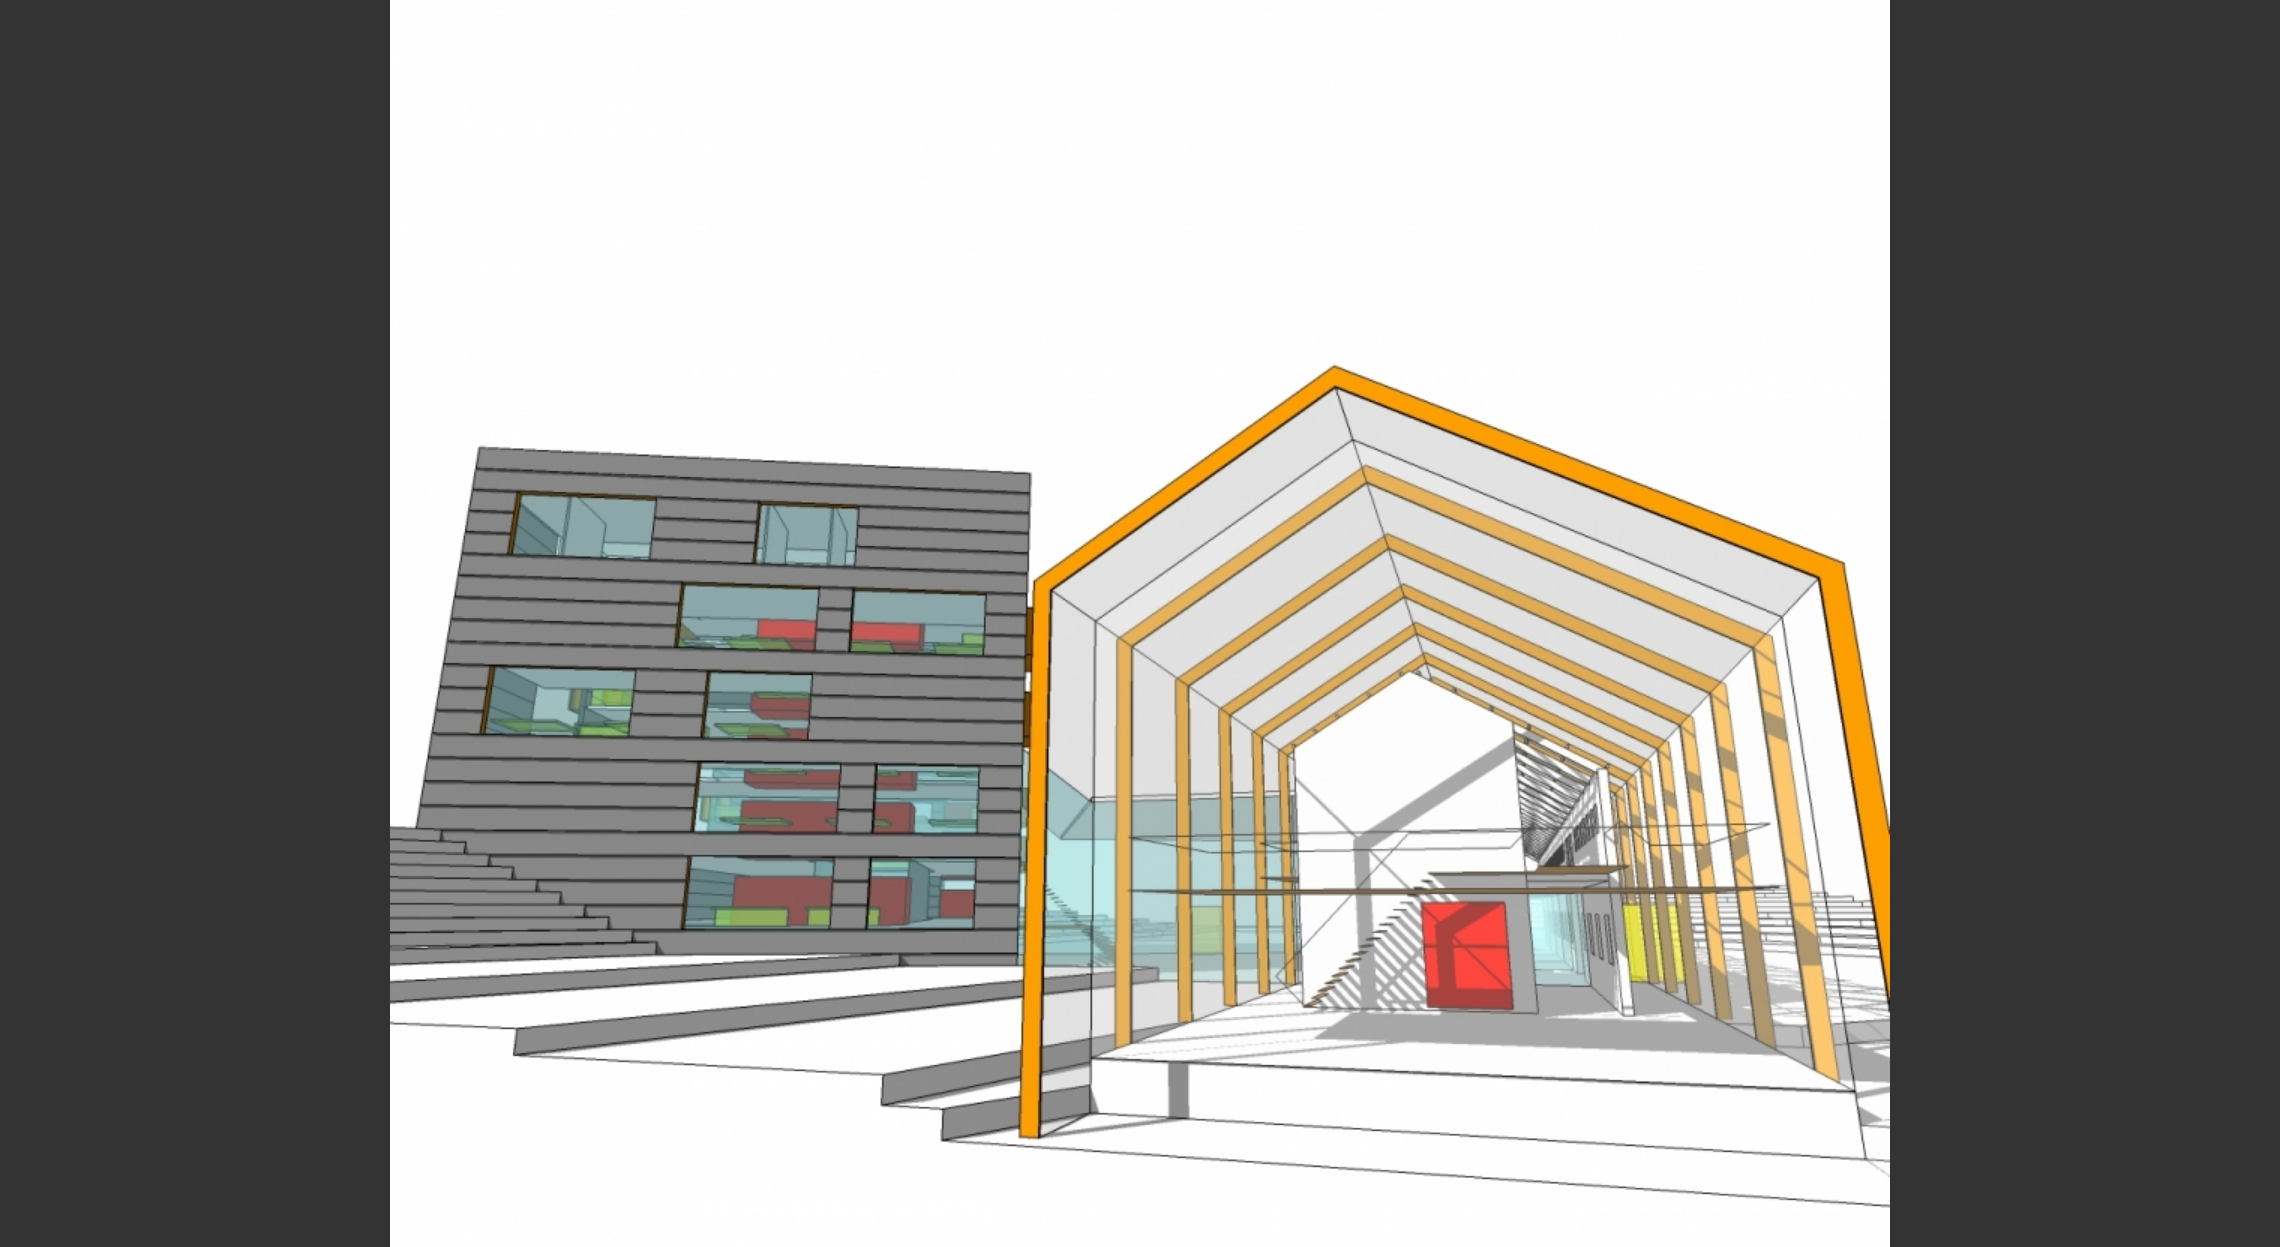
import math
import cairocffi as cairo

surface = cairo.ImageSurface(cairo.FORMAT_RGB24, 2280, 1247)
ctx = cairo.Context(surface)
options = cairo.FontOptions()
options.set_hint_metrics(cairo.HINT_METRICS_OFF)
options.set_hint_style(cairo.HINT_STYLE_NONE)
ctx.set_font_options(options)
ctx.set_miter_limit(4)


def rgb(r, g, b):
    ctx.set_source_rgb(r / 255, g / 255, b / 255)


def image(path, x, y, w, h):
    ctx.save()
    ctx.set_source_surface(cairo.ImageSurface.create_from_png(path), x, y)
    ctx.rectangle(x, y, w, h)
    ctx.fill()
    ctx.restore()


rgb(51, 51, 51)
ctx.paint()
image('image0.png', 390, 0, 1500, 1247)
surface.write_to_png('render.png')
